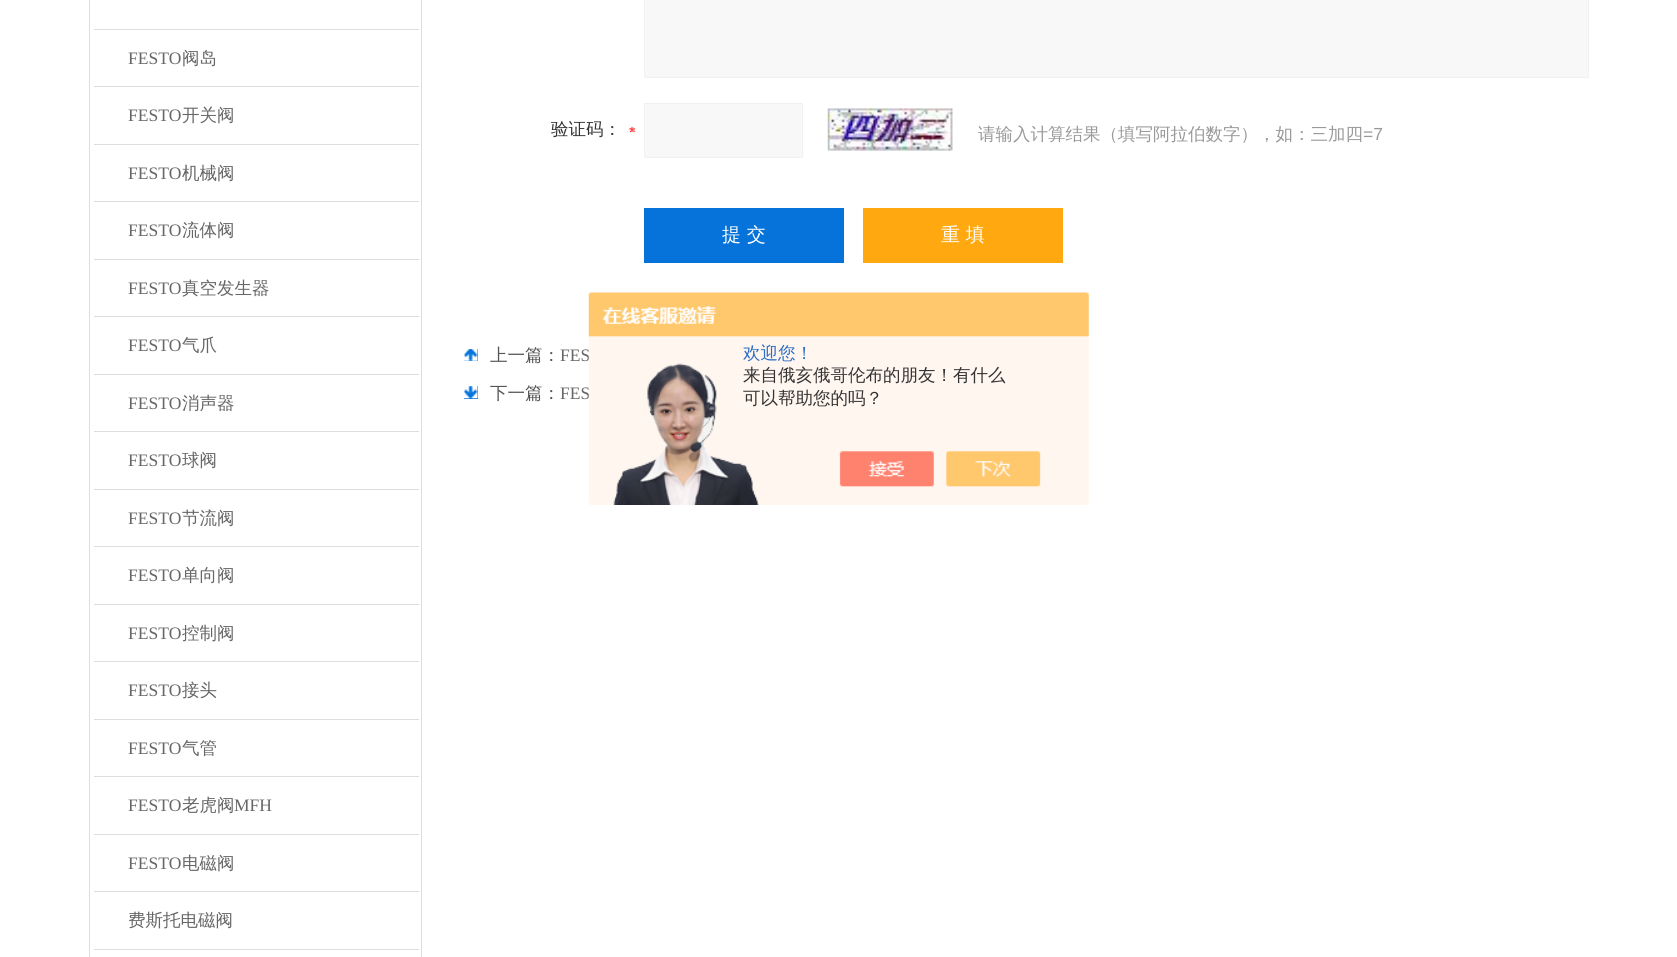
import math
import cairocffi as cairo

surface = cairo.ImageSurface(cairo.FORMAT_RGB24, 1677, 957)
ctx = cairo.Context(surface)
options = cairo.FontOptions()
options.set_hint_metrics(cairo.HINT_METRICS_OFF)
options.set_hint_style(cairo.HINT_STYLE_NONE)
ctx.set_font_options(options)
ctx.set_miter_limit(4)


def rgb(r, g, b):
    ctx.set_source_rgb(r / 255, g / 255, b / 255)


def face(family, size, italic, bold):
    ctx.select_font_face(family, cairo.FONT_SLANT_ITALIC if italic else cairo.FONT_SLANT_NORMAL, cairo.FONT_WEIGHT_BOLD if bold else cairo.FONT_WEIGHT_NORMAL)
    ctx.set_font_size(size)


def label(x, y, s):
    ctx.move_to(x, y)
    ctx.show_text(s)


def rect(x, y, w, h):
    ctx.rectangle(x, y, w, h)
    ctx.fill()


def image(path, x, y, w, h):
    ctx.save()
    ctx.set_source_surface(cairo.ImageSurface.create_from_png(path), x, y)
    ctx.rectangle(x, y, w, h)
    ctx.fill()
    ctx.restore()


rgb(255, 255, 255)
ctx.paint()
rgb(221, 221, 221)
rect(421, 0, 1, 957)
rect(89, 0, 1, 957)
rect(94, 29, 325, 1)
rect(94, 86, 325, 1)
face('Liberation Serif', 17.5, 0, 0)
rgb(102, 102, 102)
label(128, 64, 'FESTO')
face('WenQuanYi Zen Hei Medium', 17.5, 0, 0)
label(182, 64, '阀岛')
rgb(221, 221, 221)
rect(94, 144, 325, 1)
face('Liberation Serif', 17.5, 0, 0)
rgb(102, 102, 102)
label(128, 121, 'FESTO')
face('WenQuanYi Zen Hei Medium', 17.5, 0, 0)
label(182, 121, '开关阀')
rgb(221, 221, 221)
rect(94, 201, 325, 1)
face('Liberation Serif', 17.5, 0, 0)
rgb(102, 102, 102)
label(128, 179, 'FESTO')
face('WenQuanYi Zen Hei Medium', 17.5, 0, 0)
label(182, 179, '机械阀')
rgb(221, 221, 221)
rect(94, 259, 325, 1)
face('Liberation Serif', 17.5, 0, 0)
rgb(102, 102, 102)
label(128, 236, 'FESTO')
face('WenQuanYi Zen Hei Medium', 17.5, 0, 0)
label(182, 236, '流体阀')
rgb(221, 221, 221)
rect(94, 316, 325, 1)
face('Liberation Serif', 17.5, 0, 0)
rgb(102, 102, 102)
label(128, 294, 'FESTO')
face('WenQuanYi Zen Hei Medium', 17.5, 0, 0)
label(182, 294, '真空发生器')
rgb(221, 221, 221)
rect(94, 374, 325, 1)
face('Liberation Serif', 17.5, 0, 0)
rgb(102, 102, 102)
label(128, 351, 'FESTO')
face('WenQuanYi Zen Hei Medium', 17.5, 0, 0)
label(182, 351, '气爪')
rgb(221, 221, 221)
rect(94, 431, 325, 1)
face('Liberation Serif', 17.5, 0, 0)
rgb(102, 102, 102)
label(128, 409, 'FESTO')
face('WenQuanYi Zen Hei Medium', 17.5, 0, 0)
label(182, 409, '消声器')
rgb(221, 221, 221)
rect(94, 489, 325, 1)
face('Liberation Serif', 17.5, 0, 0)
rgb(102, 102, 102)
label(128, 466, 'FESTO')
face('WenQuanYi Zen Hei Medium', 17.5, 0, 0)
label(182, 466, '球阀')
rgb(221, 221, 221)
rect(94, 546, 325, 1)
face('Liberation Serif', 17.5, 0, 0)
rgb(102, 102, 102)
label(128, 524, 'FESTO')
face('WenQuanYi Zen Hei Medium', 17.5, 0, 0)
label(182, 524, '节流阀')
rgb(221, 221, 221)
rect(94, 604, 325, 1)
face('Liberation Serif', 17.5, 0, 0)
rgb(102, 102, 102)
label(128, 581, 'FESTO')
face('WenQuanYi Zen Hei Medium', 17.5, 0, 0)
label(182, 581, '单向阀')
rgb(221, 221, 221)
rect(94, 661, 325, 1)
face('Liberation Serif', 17.5, 0, 0)
rgb(102, 102, 102)
label(128, 639, 'FESTO')
face('WenQuanYi Zen Hei Medium', 17.5, 0, 0)
label(182, 639, '控制阀')
rgb(221, 221, 221)
rect(94, 719, 325, 1)
face('Liberation Serif', 17.5, 0, 0)
rgb(102, 102, 102)
label(128, 696, 'FESTO')
face('WenQuanYi Zen Hei Medium', 17.5, 0, 0)
label(182, 696, '接头')
rgb(221, 221, 221)
rect(94, 776, 325, 1)
face('Liberation Serif', 17.5, 0, 0)
rgb(102, 102, 102)
label(128, 754, 'FESTO')
face('WenQuanYi Zen Hei Medium', 17.5, 0, 0)
label(182, 754, '气管')
rgb(221, 221, 221)
rect(94, 834, 325, 1)
face('Liberation Serif', 17.5, 0, 0)
rgb(102, 102, 102)
label(128, 811, 'FESTO')
face('WenQuanYi Zen Hei Medium', 17.5, 0, 0)
label(182, 811, '老虎阀')
face('Liberation Serif', 17.5, 0, 0)
label(234, 811, 'MFH')
rgb(221, 221, 221)
rect(94, 891, 325, 1)
rgb(102, 102, 102)
label(128, 869, 'FESTO')
face('WenQuanYi Zen Hei Medium', 17.5, 0, 0)
label(182, 869, '电磁阀')
rgb(221, 221, 221)
rect(94, 949, 325, 1)
rgb(102, 102, 102)
label(128, 926, '费斯托电磁阀')
rgb(248, 248, 248)
ctx.rectangle(644.5, -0.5, 944, 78)
ctx.fill_preserve()
rgb(241, 241, 241)
ctx.set_line_width(1)
ctx.stroke()
image('image0.png', 628, 126, 8, 7)
rgb(51, 51, 51)
label(551, 135, '验证码：')
rgb(248, 248, 248)
ctx.rectangle(644.5, 103.5, 158, 54)
ctx.fill_preserve()
rgb(241, 241, 241)
ctx.stroke()
image('image1.png', 827, 108, 126, 43)
rgb(153, 153, 153)
label(978, 140, '请输入计算结果（填写阿拉伯数字），如：三加四')
face('Liberation Sans', 17.5, 0, 0)
label(1363, 140, '=7')
rgb(5, 115, 218)
rect(644, 208, 200, 55)
face('WenQuanYi Zen Hei Medium', 19, 0, 0)
rgb(255, 255, 255)
label(722, 241, '提 交')
rgb(255, 168, 16)
rect(863, 208, 200, 55)
rgb(255, 255, 255)
label(941, 241, '重 填')
rgb(5, 115, 218)
rect(464, 349, 14, 12)
image('image2.png', 464, 349, 14, 12)
face('WenQuanYi Zen Hei Medium', 17.5, 0, 0)
rgb(85, 85, 85)
label(490, 361, '上一篇：')
face('Liberation Serif', 17.5, 0, 0)
rgb(102, 102, 102)
label(560, 361, 'FES')
rgb(5, 115, 218)
rect(464, 386, 14, 13)
image('image3.png', 464, 386, 14, 13)
face('WenQuanYi Zen Hei Medium', 17.5, 0, 0)
rgb(85, 85, 85)
label(490, 399, '下一篇：')
face('Liberation Serif', 17.5, 0, 0)
rgb(102, 102, 102)
label(560, 399, 'FES')
image('image4.png', 588, 292, 501, 213)
face('WenQuanYi Zen Hei Medium', 17.5, 0, 0)
rgb(46, 110, 198)
label(743, 359, '欢迎您！')
rgb(51, 51, 51)
label(743, 381, '来自俄亥俄哥伦布的朋友！有什么')
label(743, 404, '可以帮助您的吗？')
surface.write_to_png('render.png')
